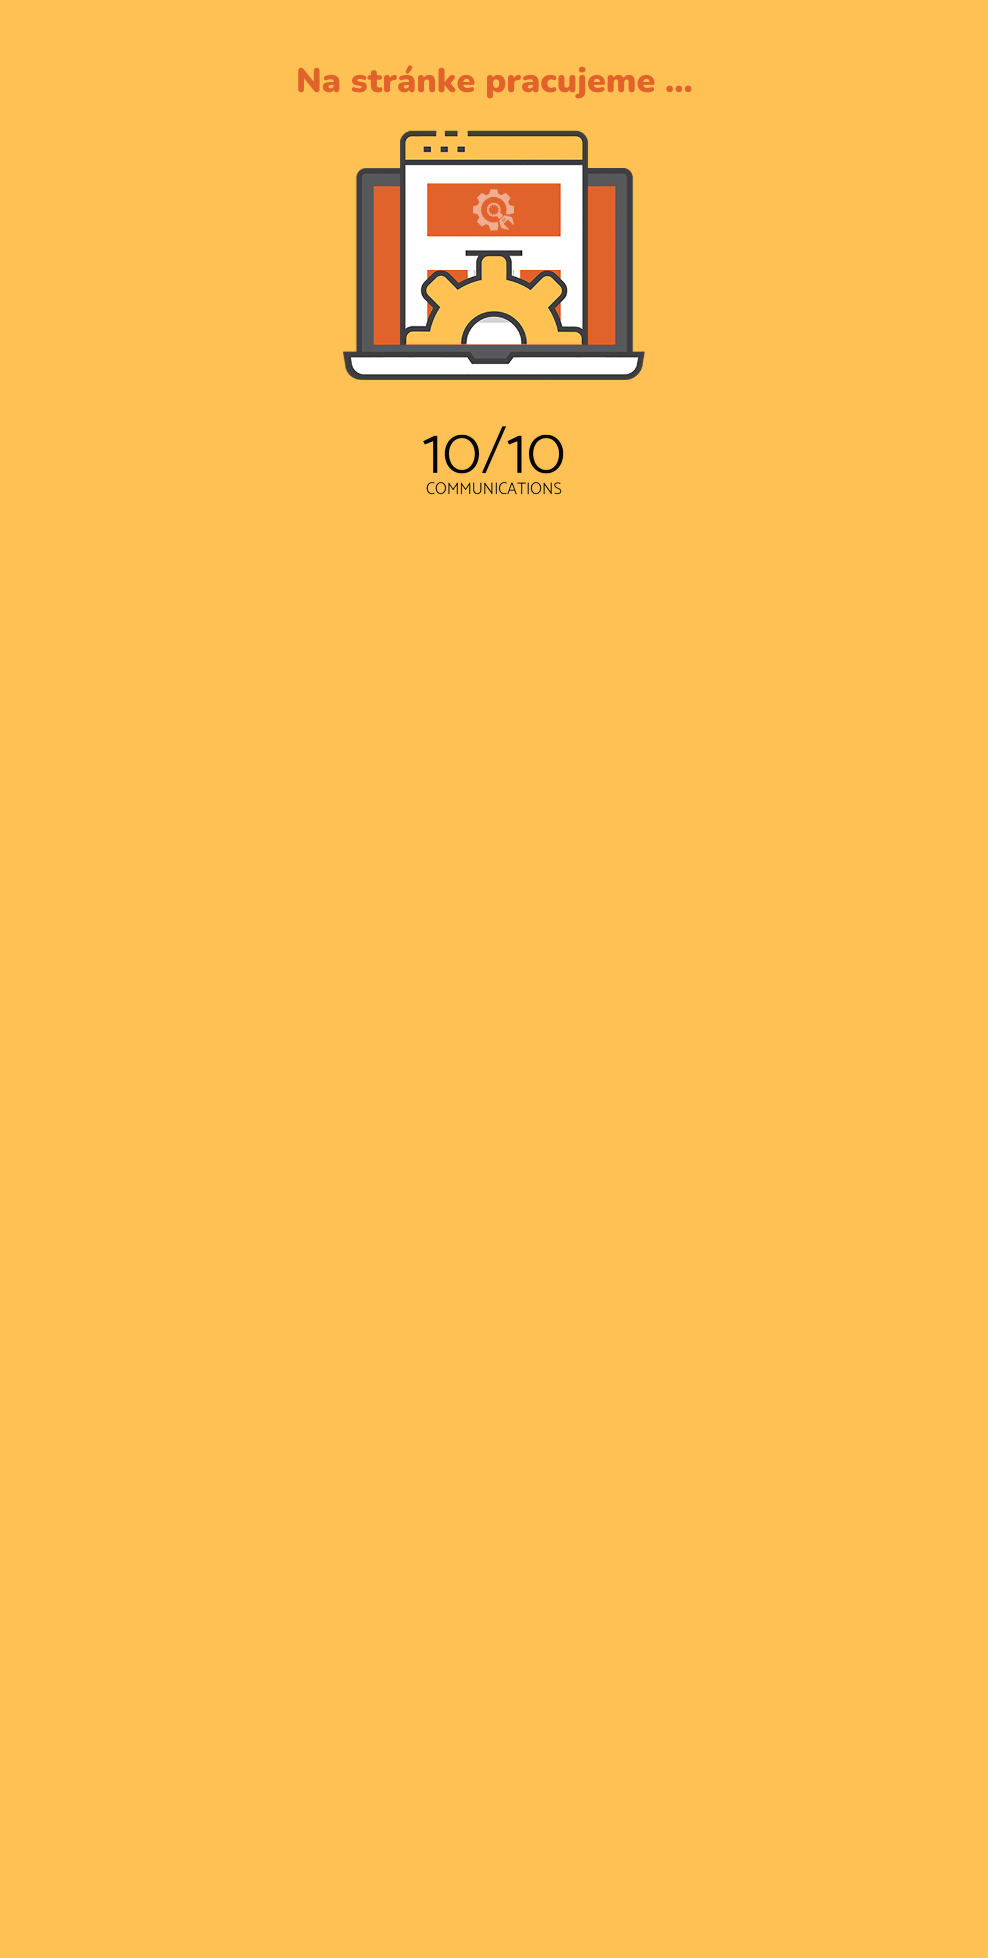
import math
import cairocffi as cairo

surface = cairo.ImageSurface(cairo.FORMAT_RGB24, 988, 1958)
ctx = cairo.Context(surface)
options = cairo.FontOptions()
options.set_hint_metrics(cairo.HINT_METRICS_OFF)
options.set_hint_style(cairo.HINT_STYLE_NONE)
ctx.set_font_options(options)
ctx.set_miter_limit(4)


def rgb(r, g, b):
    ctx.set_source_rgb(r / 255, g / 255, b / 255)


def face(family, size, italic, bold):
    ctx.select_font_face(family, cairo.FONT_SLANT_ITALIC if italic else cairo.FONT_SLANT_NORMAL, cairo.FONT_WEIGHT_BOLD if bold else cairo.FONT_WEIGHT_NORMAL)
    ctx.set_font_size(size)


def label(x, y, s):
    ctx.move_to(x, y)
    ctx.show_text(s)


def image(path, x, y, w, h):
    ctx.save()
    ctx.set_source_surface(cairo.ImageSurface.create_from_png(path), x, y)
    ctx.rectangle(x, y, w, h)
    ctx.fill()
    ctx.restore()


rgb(255, 193, 83)
ctx.paint()
face('Nunito ExtraLight', 34, 0, 0)
rgb(225, 99, 43)
label(296, 92, 'Na stránke pracujeme ...')
image('image0.png', 343, 130, 302, 250)
image('image1.png', 423, 426, 141, 69)
surface.write_to_png('render.png')
